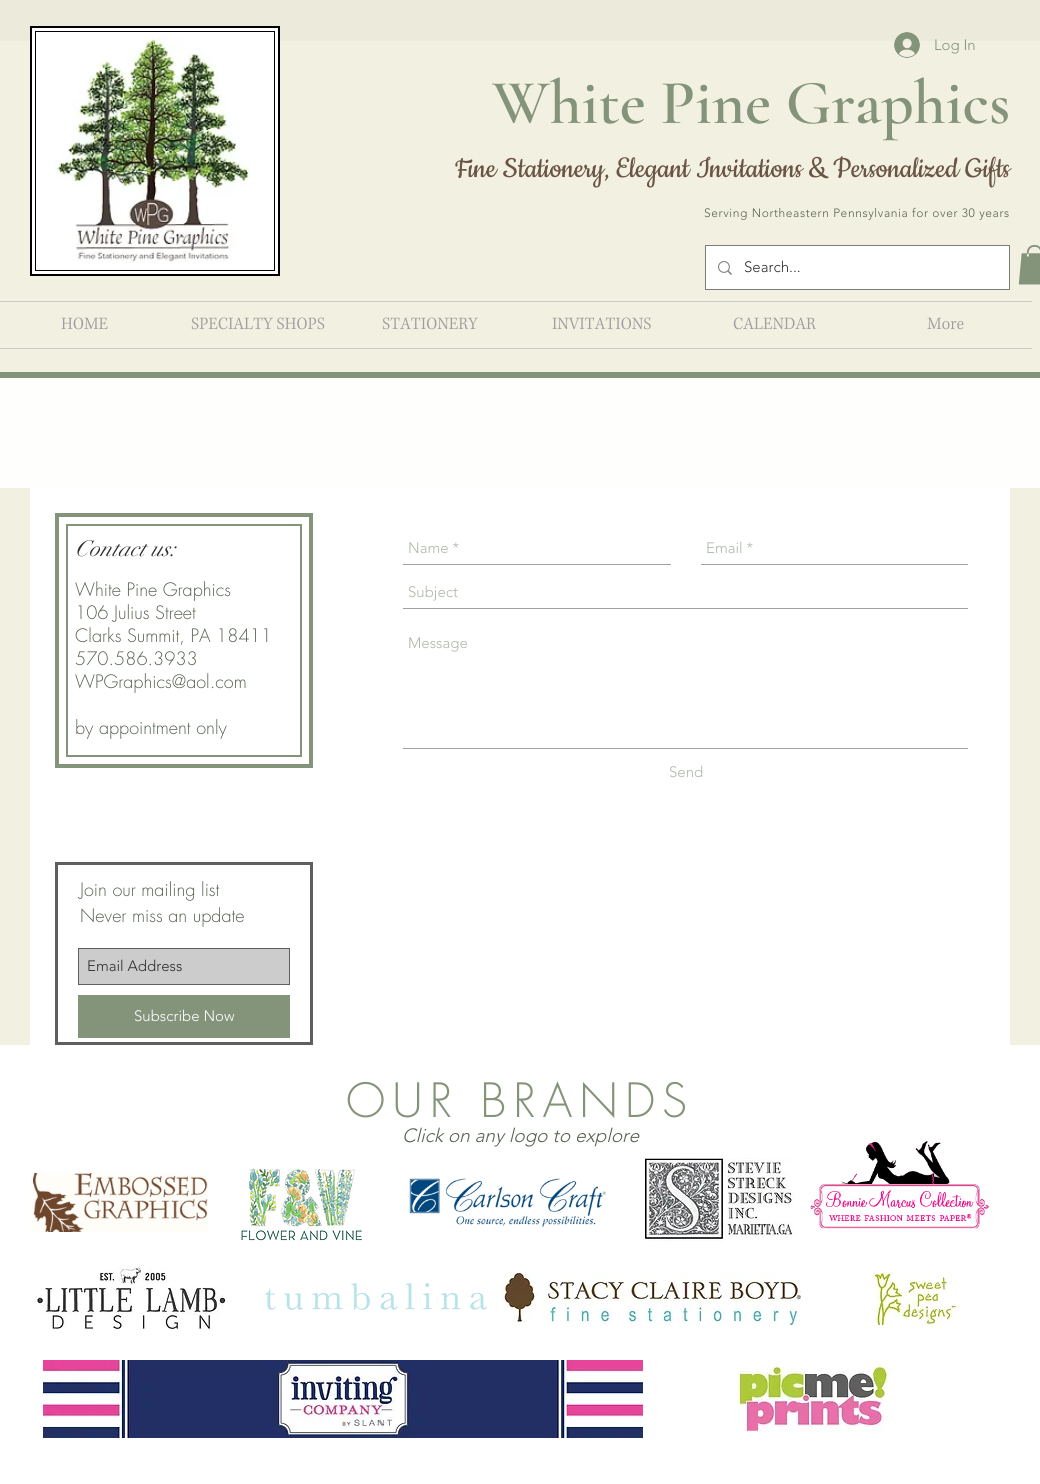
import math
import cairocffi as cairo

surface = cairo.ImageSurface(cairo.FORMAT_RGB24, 1040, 1484)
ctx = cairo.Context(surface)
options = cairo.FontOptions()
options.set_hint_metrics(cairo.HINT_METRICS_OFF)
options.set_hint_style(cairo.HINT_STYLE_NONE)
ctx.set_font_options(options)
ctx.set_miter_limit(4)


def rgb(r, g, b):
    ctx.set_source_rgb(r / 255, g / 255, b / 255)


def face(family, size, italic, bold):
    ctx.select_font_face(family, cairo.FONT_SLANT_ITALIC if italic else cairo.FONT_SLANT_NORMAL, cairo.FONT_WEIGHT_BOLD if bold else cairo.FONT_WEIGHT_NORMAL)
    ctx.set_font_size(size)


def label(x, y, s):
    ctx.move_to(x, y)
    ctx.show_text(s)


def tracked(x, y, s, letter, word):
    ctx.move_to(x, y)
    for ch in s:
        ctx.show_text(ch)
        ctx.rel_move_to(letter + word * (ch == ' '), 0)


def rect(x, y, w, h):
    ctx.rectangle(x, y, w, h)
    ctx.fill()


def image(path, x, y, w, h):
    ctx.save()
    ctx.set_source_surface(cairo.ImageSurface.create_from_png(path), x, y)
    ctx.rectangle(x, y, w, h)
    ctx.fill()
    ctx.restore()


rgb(242, 240, 225)
ctx.paint()
rgb(235, 234, 219)
rect(0, 0, 1040, 41)
rgb(255, 255, 255)
ctx.rectangle(31, 27, 248, 248)
ctx.fill_preserve()
rgb(0, 0, 0)
ctx.stroke()
image('image0.png', 54, 37, 196, 226)
ctx.rectangle(35.5, 31.5, 239, 239)
ctx.set_line_width(1)
ctx.stroke()
image('image1.png', 894, 32, 26, 26)
face('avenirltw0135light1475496 Light', 15, 0, 0)
rgb(132, 148, 123)
label(934, 50, 'Log In')
face('Cormorant Garamond SemiBold', 63, 0, 0)
label(492, 123, 'White Pine Graphics')
face('Cookie', 33, 0, 0)
rgb(106, 84, 70)
label(455, 177, 'Fine Stationery, Elegant Invitations & Personalized Gifts')
face('avenirltw0135light1475496 Light', 12, 0, 0)
rgb(88, 99, 82)
tracked(704, 217, 'Serving Northeastern Pennsylvania for over 30 years', 0.6, 0)
ctx.rectangle(705.5, 245.5, 304, 44)
rgb(125, 124, 118)
ctx.stroke()
rgb(255, 255, 255)
rect(706, 246, 303, 43)
image('image2.png', 718, 261, 14, 14)
face('avenirltw0135light1475496 Light', 15, 0, 0)
rgb(47, 46, 46)
label(744, 272, 'Search...')
image('image3.png', 1018, 245, 22, 40)
rgb(202, 202, 202)
rect(0, 301, 1032, 1)
rect(0, 348, 1032, 1)
image('image4.png', 61, 317, 47, 13)
image('image5.png', 191, 317, 134, 13)
image('image6.png', 382, 317, 96, 13)
image('image7.png', 552, 317, 99, 13)
image('image8.png', 733, 317, 83, 13)
image('image9.png', 927, 317, 37, 13)
rgb(132, 148, 123)
rect(0, 372, 1040, 6)
rgb(254, 254, 252)
rect(0, 378, 1040, 110)
rgb(255, 255, 255)
rect(30, 488, 980, 557)
ctx.rectangle(57, 515, 254, 251)
rgb(132, 148, 123)
ctx.set_line_width(4)
ctx.stroke()
ctx.rectangle(67, 525, 234, 231)
ctx.set_line_width(2)
ctx.stroke()
face('didot', 22, 1, 0)
rgb(47, 46, 46)
label(75, 556, 'Contact us:')
rgb(160, 160, 159)
rect(403, 564, 268, 1)
face('avenirltw0135light1475496 Light', 15, 0, 0)
rgb(174, 184, 168)
label(408, 553, 'Name *')
rgb(160, 160, 159)
rect(701, 564, 267, 1)
rgb(174, 184, 168)
label(706, 553, 'Email *')
rgb(160, 160, 159)
rect(403, 608, 565, 1)
rgb(174, 184, 168)
label(408, 597, 'Subject')
rgb(160, 160, 159)
rect(403, 748, 565, 1)
rgb(174, 184, 168)
label(408, 648, 'Message')
label(669, 777, 'Send')
face('futura Light', 18, 0, 0)
rgb(88, 99, 82)
label(75, 596, 'White Pine Graphics')
label(75, 619, '106 Julius Street')
label(75, 642, 'Clarks Summit, PA 18411')
label(75, 665, '570.586.3933')
label(75, 688, 'WPGraphics@aol.com')
label(75, 734, 'by appointment only')
ctx.rectangle(56.5, 863.5, 255, 180)
rgb(96, 94, 94)
ctx.set_line_width(3)
ctx.stroke()
rgb(88, 99, 82)
label(80, 896, 'Join our mailing list')
label(80, 922, 'Never miss an update')
rgb(204, 204, 204)
ctx.rectangle(78.5, 948.5, 211, 36)
ctx.fill_preserve()
rgb(96, 94, 94)
ctx.set_line_width(1)
ctx.stroke()
face('avenirltw0135light1475496 Light', 15, 0, 0)
rgb(47, 46, 46)
label(87, 971, 'Email Address')
rgb(132, 148, 123)
rect(78, 995, 212, 43)
rgb(255, 255, 255)
label(134, 1021, 'Subscribe Now')
rect(0, 1045, 1040, 439)
face('futura Light', 46, 0, 0)
rgb(132, 148, 123)
tracked(346, 1117, 'OUR BRANDS', 7, 0)
face('avenirltw0135light1475496 Light', 19, 1, 0)
rgb(88, 99, 82)
label(402, 1142, 'Click on any logo to explore')
image('image10.png', 30, 1173, 178, 59)
image('image11.png', 241, 1168, 121, 73)
image('image12.png', 409, 1178, 197, 49)
image('image13.png', 643, 1158, 152, 83)
image('image14.png', 810, 1141, 179, 88)
image('image15.png', 35, 1267, 192, 62)
image('image16.png', 265, 1283, 222, 27)
image('image17.png', 501, 1273, 300, 52)
image('image18.png', 873, 1273, 85, 52)
image('image19.png', 43, 1360, 600, 78)
image('image20.png', 737, 1367, 156, 64)
surface.write_to_png('render.png')
